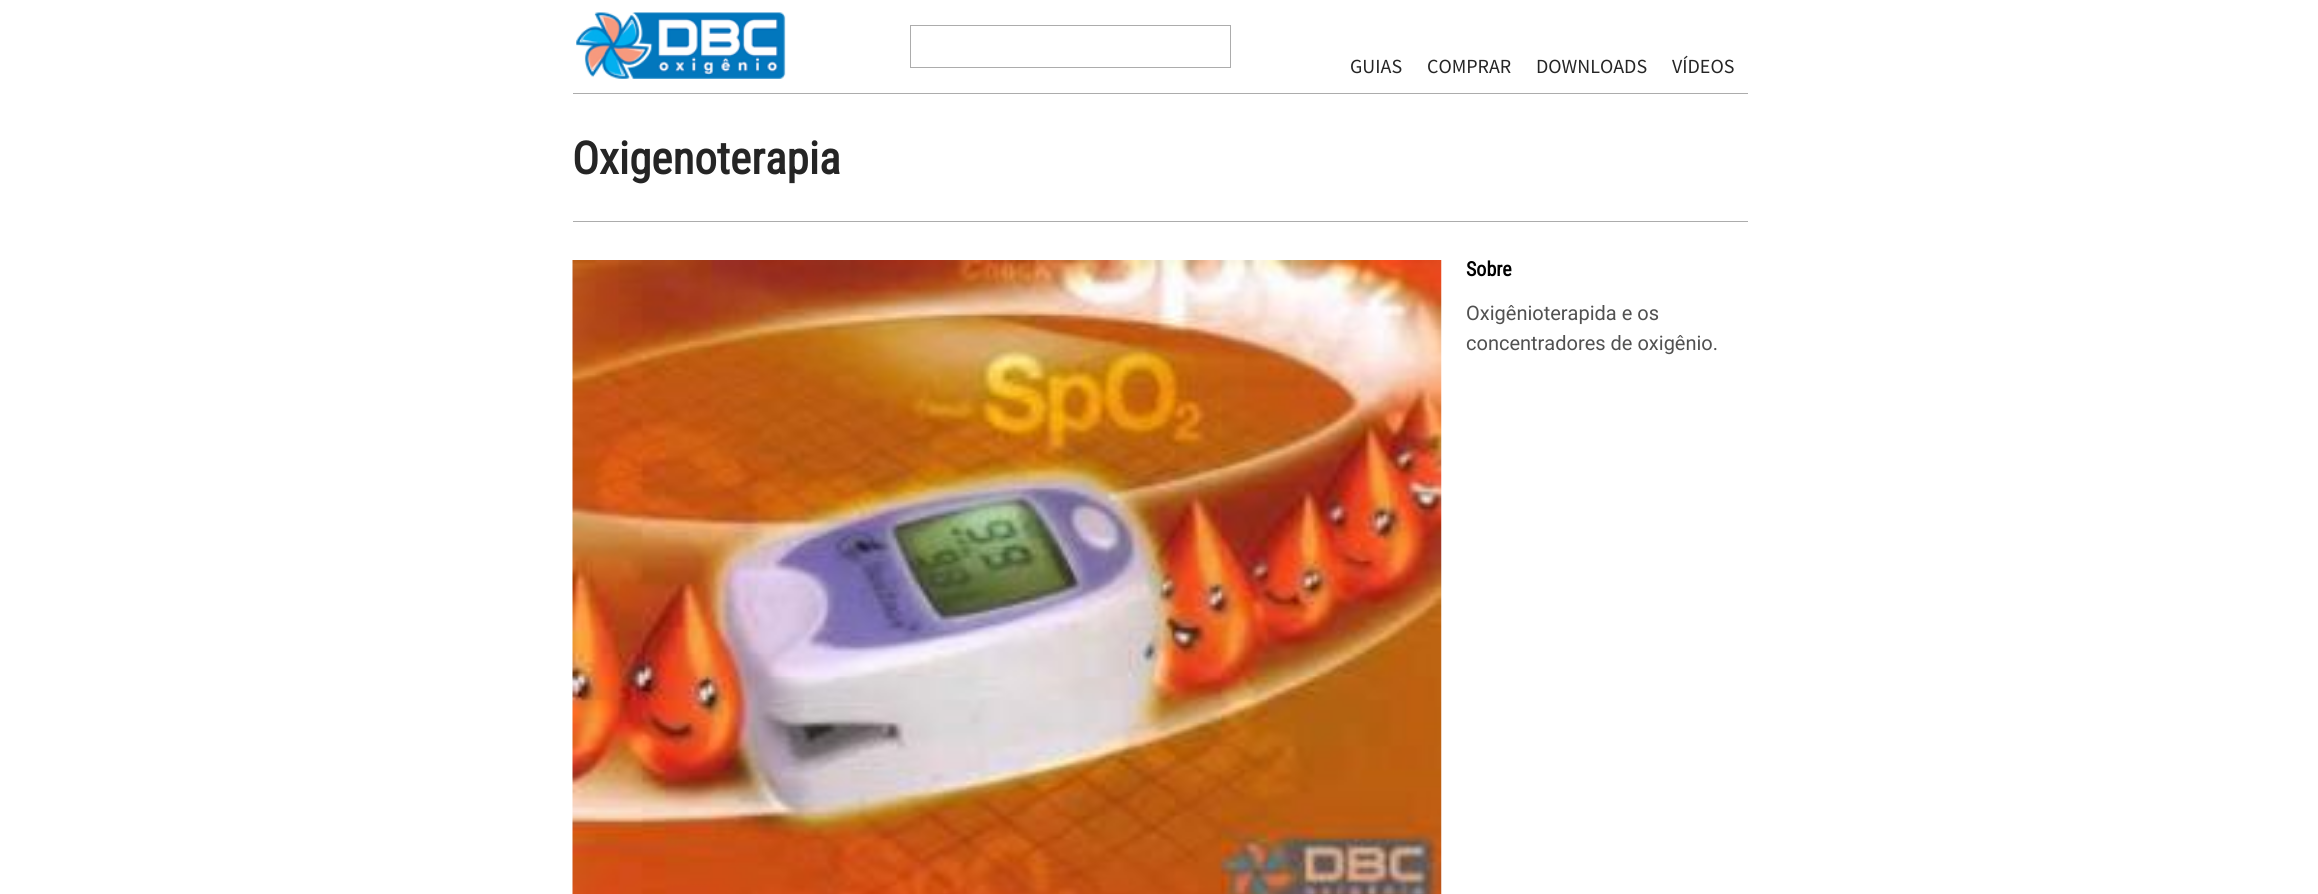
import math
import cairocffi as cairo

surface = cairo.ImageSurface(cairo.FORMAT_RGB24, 2318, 894)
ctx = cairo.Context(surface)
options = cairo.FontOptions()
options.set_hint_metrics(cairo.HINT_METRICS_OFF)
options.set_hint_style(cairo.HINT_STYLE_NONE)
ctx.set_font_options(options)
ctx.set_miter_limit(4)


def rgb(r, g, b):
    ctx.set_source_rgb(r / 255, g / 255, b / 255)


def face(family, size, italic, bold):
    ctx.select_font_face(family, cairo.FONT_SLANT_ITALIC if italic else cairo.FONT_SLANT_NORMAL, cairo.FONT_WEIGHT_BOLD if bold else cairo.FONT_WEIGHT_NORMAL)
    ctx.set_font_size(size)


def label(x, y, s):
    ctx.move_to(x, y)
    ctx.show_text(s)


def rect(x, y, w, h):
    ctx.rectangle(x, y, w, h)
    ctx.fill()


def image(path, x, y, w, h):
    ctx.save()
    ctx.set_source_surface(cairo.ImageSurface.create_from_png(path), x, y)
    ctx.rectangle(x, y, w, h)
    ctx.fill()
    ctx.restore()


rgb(255, 255, 255)
ctx.paint()
rgb(172, 172, 172)
rect(573, 93, 1175, 1)
image('image0.png', 576, 12, 210, 67)
ctx.rectangle(910.5, 25.5, 320, 42)
ctx.set_line_width(1)
ctx.stroke()
face('Source Sans Pro', 20, 0, 0)
rgb(37, 37, 37)
label(1350, 73, 'GUIAS')
label(1427, 73, 'COMPRAR')
label(1536, 73, 'DOWNLOADS')
label(1672, 73, 'VÍDEOS')
rgb(172, 172, 172)
rect(573, 221, 1175, 1)
face('Roboto Condensed', 45, 0, 1)
rgb(37, 37, 37)
label(572, 174, 'Oxigenoterapia')
image('image1.png', 572, 260, 870, 634)
face('Roboto Condensed', 20, 0, 1)
rgb(0, 0, 0)
label(1466, 276, 'Sobre')
face('Roboto', 20, 0, 0)
rgb(81, 81, 81)
label(1466, 320, 'Oxigênioterapida e os')
label(1466, 350, 'concentradores de oxigênio.')
surface.write_to_png('render.png')
